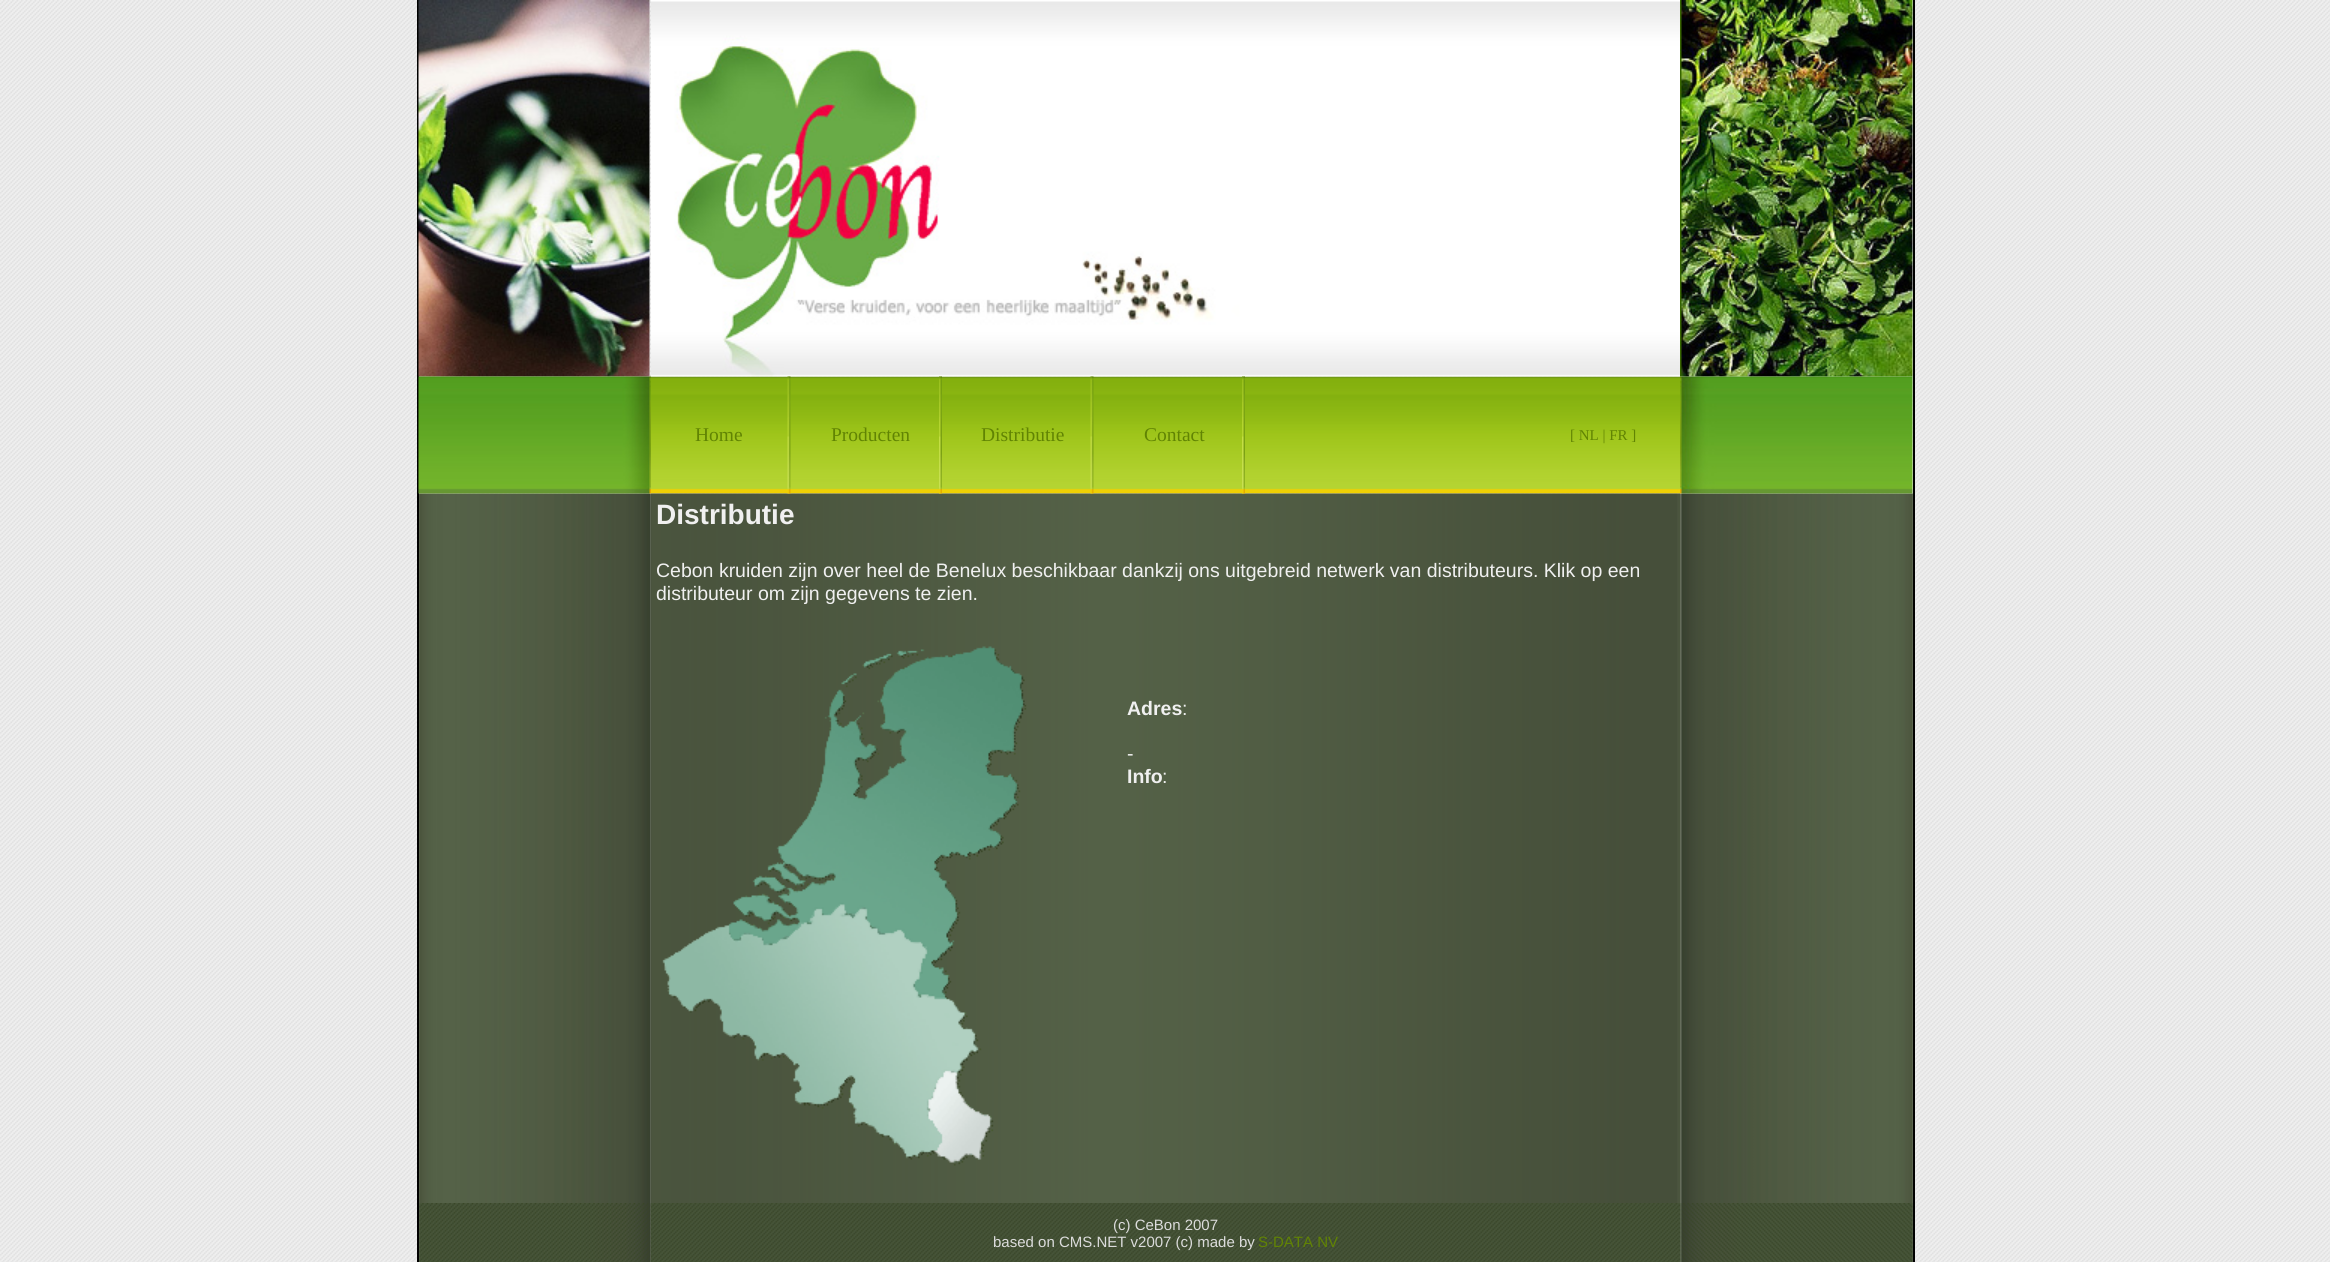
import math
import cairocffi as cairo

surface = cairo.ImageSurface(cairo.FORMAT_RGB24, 2330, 1262)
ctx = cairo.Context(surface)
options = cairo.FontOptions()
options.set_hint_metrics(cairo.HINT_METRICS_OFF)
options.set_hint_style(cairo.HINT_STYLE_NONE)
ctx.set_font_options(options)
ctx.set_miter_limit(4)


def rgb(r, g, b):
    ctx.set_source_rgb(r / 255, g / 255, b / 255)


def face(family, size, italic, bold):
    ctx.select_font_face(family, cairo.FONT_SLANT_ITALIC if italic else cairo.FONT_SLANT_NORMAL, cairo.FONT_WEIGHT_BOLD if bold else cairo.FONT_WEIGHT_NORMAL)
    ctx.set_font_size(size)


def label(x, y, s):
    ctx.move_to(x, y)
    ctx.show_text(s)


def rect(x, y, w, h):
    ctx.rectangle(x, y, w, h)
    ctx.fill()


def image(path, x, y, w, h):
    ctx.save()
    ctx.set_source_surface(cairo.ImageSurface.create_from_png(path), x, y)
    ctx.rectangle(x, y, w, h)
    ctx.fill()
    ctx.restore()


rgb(255, 255, 255)
ctx.paint()
image('image0.png', 0, 0, 2330, 1262)
rgb(0, 0, 0)
rect(1913, 0, 2, 1262)
rect(417, 0, 2, 1262)
image('image1.png', 418, 0, 232, 377)
image('image5.png', 651, 376, 1029, 118)
image('image2.png', 651, 0, 1029, 377)
image('image3.png', 1680, 0, 233, 377)
image('image11.png', 419, 493, 232, 710)
image('image4.png', 418, 376, 233, 118)
face('Liberation Serif', 19.5, 0, 0)
rgb(97, 132, 3)
label(695, 441, 'Home')
image('image12.png', 651, 493, 1029, 710)
image('image6.png', 787, 376, 4, 118)
label(831, 441, 'Producten')
image('image7.png', 939, 376, 3, 118)
label(981, 441, 'Distributie')
image('image8.png', 1090, 376, 4, 118)
label(1144, 441, 'Contact')
image('image9.png', 1242, 376, 3, 118)
face('Liberation Serif', 15, 0, 0)
label(1570, 440, '[ NL | FR ]')
image('image14.png', 1680, 493, 233, 710)
image('image10.png', 1680, 376, 233, 118)
face('Liberation Sans', 28, 0, 1)
rgb(240, 240, 240)
label(656, 524, 'Distributie')
face('Liberation Sans', 19.5, 0, 0)
label(656, 577, 'Cebon kruiden zijn over heel de Benelux beschikbaar dankzij ons uitgebreid netwerk van distributeurs. Klik op een')
label(656, 600, 'distributeur om zijn gegevens te zien.')
image('image13.png', 662, 646, 365, 520)
face('Liberation Sans', 19.5, 0, 1)
label(1127, 715, 'Adres')
face('Liberation Sans', 19.5, 0, 0)
label(1182, 715, ':')
label(1127, 760, '-')
face('Liberation Sans', 19.5, 0, 1)
label(1127, 783, 'Info')
face('Liberation Sans', 19.5, 0, 0)
label(1162, 783, ':')
image('image15.png', 419, 1203, 232, 59)
image('image16.png', 651, 1203, 1029, 59)
face('Liberation Sans', 15, 0, 0)
rgb(220, 220, 220)
label(1113, 1230, '(c) CeBon 2007')
label(993, 1247, 'based on CMS.NET v2007 (c) made by')
rgb(97, 132, 3)
label(1258, 1247, 'S-DATA NV')
image('image17.png', 1680, 1203, 233, 59)
surface.write_to_png('render.png')
